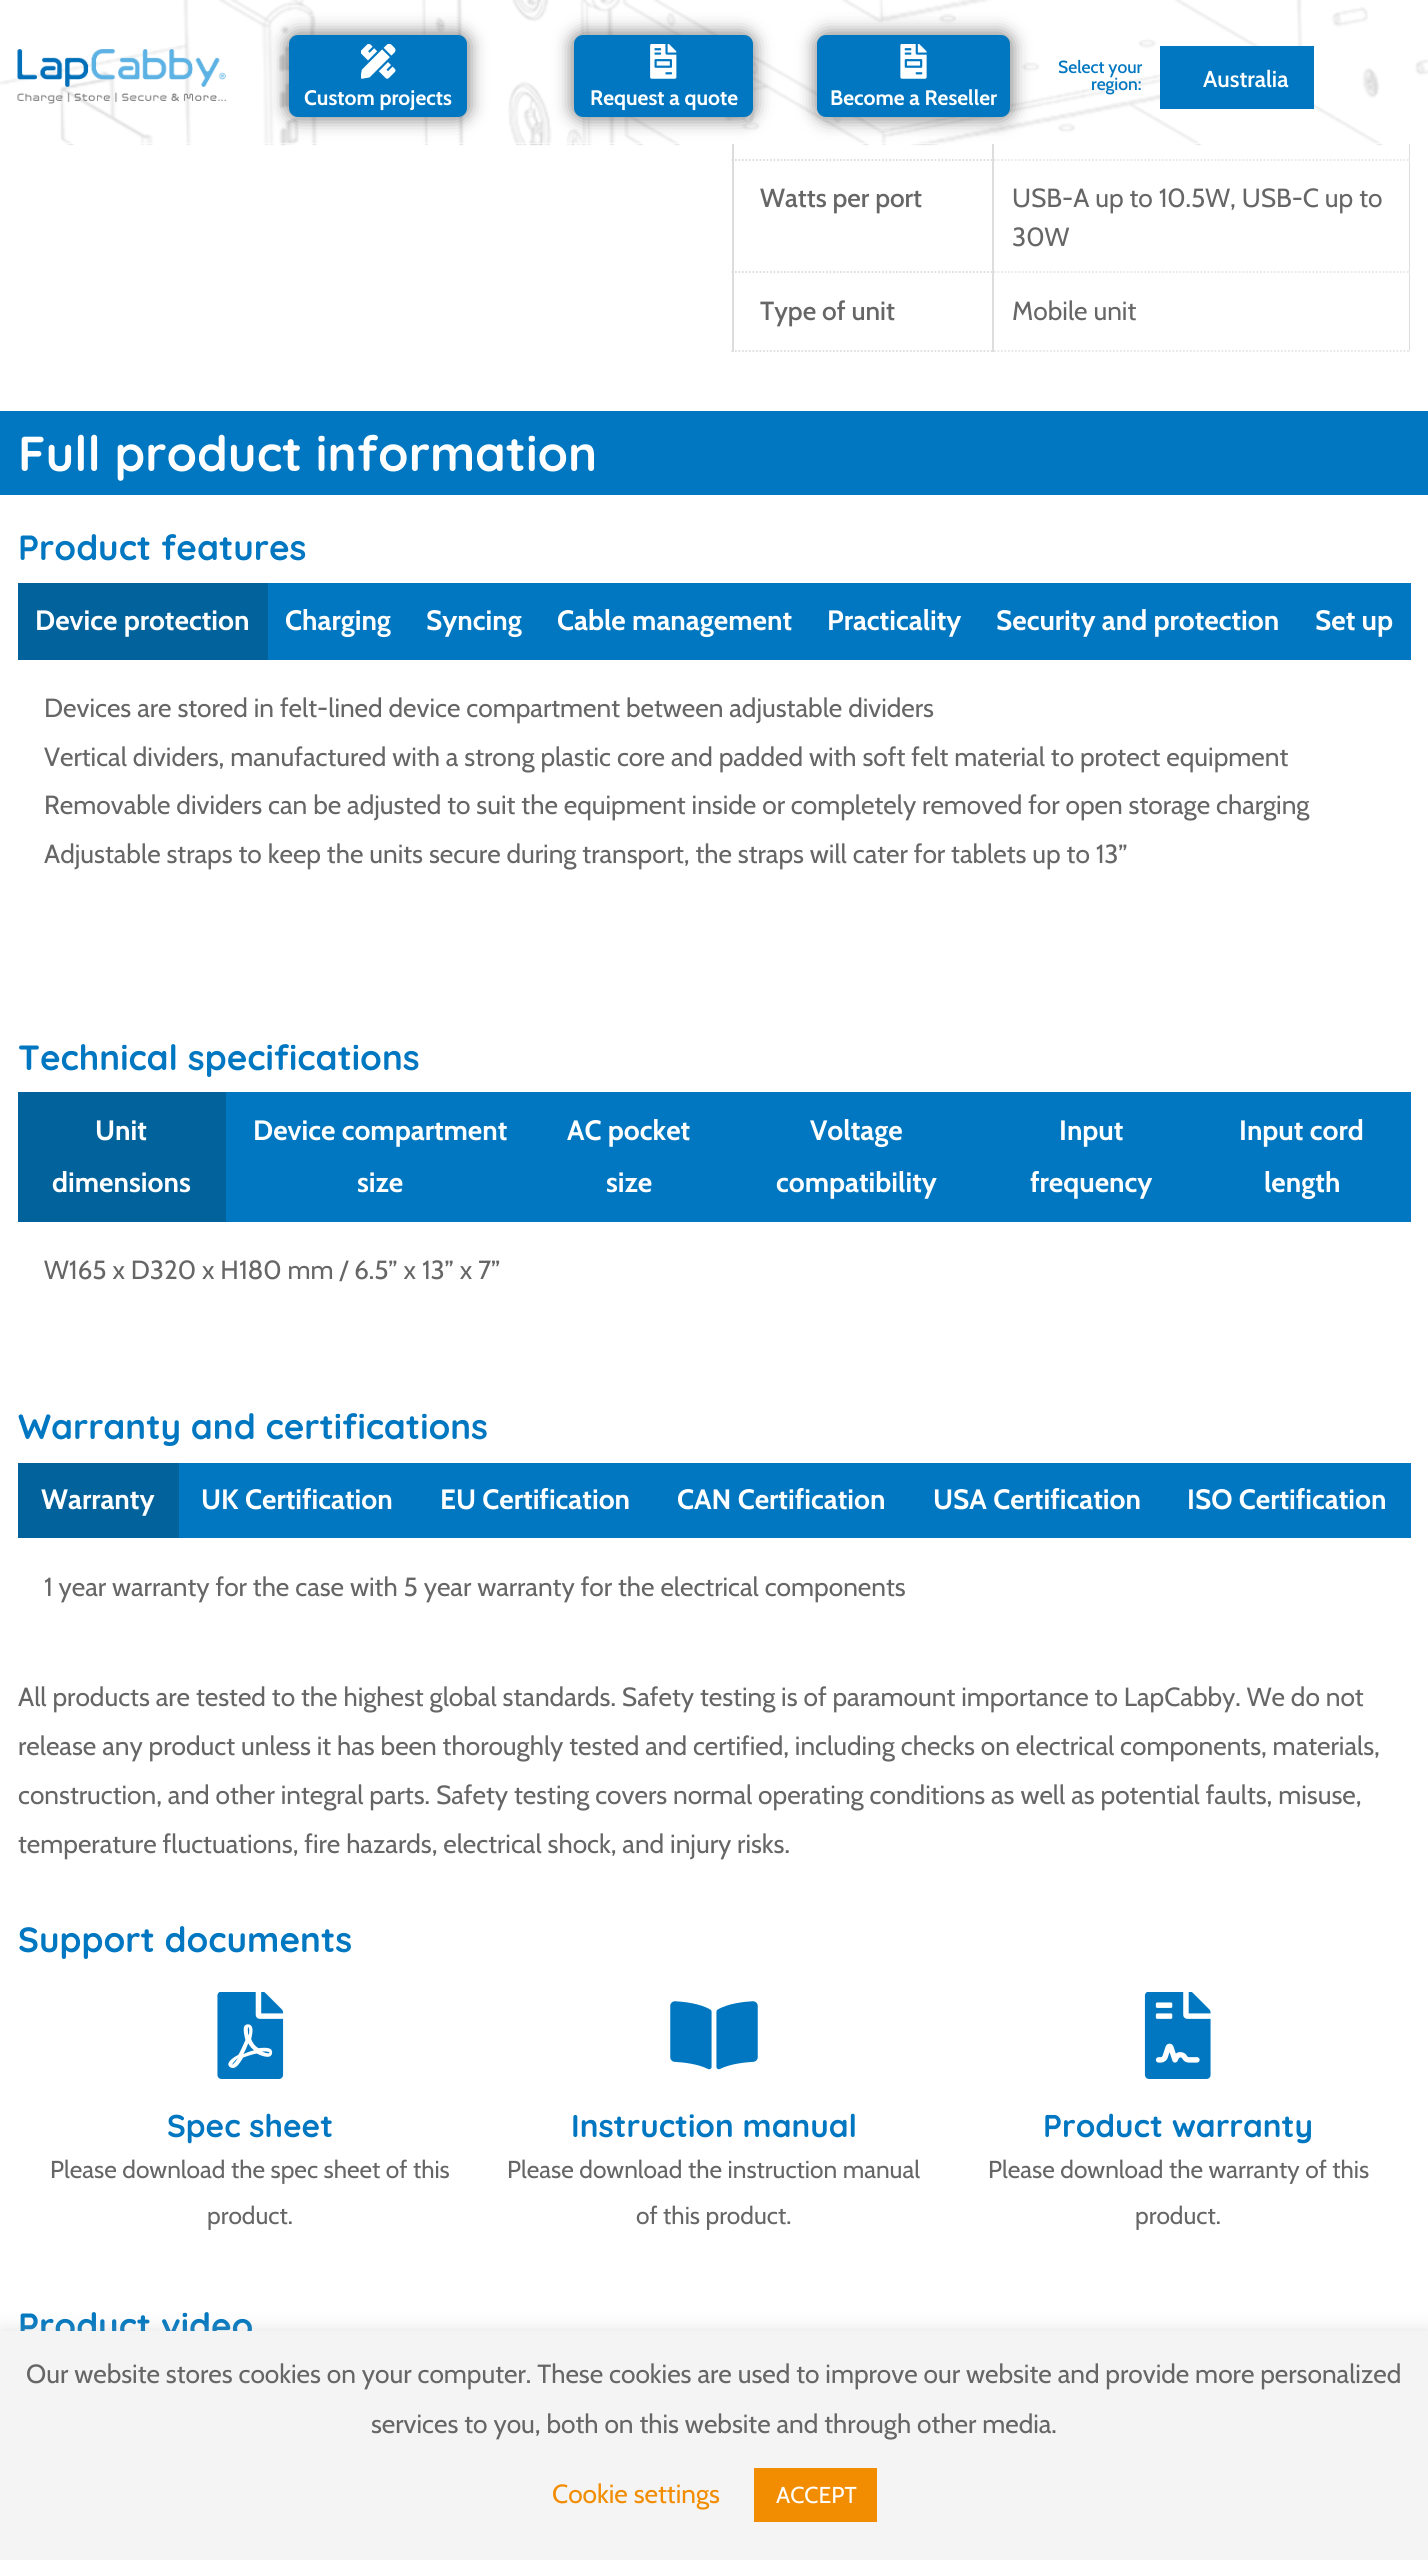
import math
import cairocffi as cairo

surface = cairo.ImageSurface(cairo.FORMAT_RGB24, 1428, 2560)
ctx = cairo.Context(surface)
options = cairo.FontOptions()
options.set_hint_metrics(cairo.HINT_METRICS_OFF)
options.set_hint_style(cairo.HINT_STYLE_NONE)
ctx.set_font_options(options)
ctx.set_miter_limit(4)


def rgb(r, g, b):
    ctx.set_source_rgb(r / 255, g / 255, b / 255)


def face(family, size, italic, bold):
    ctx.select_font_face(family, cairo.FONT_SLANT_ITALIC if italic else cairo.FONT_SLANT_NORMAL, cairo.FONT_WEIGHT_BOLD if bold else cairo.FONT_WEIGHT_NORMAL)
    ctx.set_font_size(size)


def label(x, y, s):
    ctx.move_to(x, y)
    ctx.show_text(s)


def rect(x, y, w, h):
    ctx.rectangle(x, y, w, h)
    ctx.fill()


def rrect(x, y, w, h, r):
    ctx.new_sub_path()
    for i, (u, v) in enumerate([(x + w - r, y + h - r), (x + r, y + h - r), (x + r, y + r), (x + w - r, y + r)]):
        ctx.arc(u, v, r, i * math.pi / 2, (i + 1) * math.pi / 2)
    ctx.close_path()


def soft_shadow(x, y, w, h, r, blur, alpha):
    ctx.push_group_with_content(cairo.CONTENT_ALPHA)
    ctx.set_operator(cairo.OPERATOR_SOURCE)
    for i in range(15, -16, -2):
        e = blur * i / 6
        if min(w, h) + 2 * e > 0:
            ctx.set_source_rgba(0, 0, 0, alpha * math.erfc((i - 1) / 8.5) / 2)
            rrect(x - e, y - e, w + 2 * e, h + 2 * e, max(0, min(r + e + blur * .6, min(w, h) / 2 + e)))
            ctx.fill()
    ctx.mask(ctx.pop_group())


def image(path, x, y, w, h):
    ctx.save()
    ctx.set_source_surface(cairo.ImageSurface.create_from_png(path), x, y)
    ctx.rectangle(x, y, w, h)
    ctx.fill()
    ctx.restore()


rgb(255, 255, 255)
ctx.paint()
rgb(221, 221, 221)
ctx.new_path()
ctx.move_to(1410, 47)
ctx.line_to(1410, 161)
ctx.line_to(1409, 159)
ctx.line_to(1409, 47)
ctx.close_path()
ctx.fill()
rgb(255, 255, 255)
rect(1409, 47, 1, 97)
rgb(221, 221, 221)
rect(992, 144, 2, 208)
ctx.new_path()
ctx.move_to(731.5, 160)
ctx.line_to(994, 160)
ctx.set_line_width(1.8)
ctx.set_dash([1.75, 1.75])
ctx.stroke()
rect(732, 144, 2, 17)
image('image0.png', 0, 0, 1428, 146)
ctx.set_source_rgba(1, 1, 1, 0.85)
rect(0, 0, 1428, 144)
image('image1.png', 17, 49, 209, 55)
face('Cabin Medium', 17.5, 0, 0)
rgb(0, 119, 192)
label(1058, 73, 'Select your')
label(1091, 90, 'region:')
rect(1160, 46, 154, 63)
face('Cabin SemiBold', 23, 0, 0)
rgb(255, 255, 255)
label(1203, 87, 'Australia')
rgb(0, 0, 0)
soft_shadow(287, 33, 182, 86, 11, 9, 0.5)
rgb(0, 119, 192)
rrect(289, 35, 178, 82, 9)
ctx.fill()
image('image2.png', 361, 44, 35, 35)
face('Cabin', 21, 0, 1)
rgb(255, 255, 255)
label(304, 105, 'Custom projects')
rgb(0, 0, 0)
soft_shadow(572, 33, 182, 86, 11, 9, 0.5)
rgb(0, 119, 192)
rrect(574, 35, 179, 82, 9)
ctx.fill()
image('image3.png', 650, 44, 27, 35)
rgb(255, 255, 255)
label(590, 105, 'Request a quote')
rgb(0, 0, 0)
soft_shadow(816, 33, 196, 86, 11, 9, 0.5)
rgb(0, 119, 192)
rrect(817, 35, 193, 82, 9)
ctx.fill()
image('image4.png', 900, 44, 27, 35)
rgb(255, 255, 255)
label(830, 105, 'Become a Reseller')
ctx.new_path()
ctx.move_to(994, 160)
ctx.line_to(1410.5, 160)
rgb(230, 230, 230)
ctx.stroke()
ctx.new_path()
ctx.move_to(731.5, 272)
ctx.line_to(994, 272)
rgb(221, 221, 221)
ctx.stroke()
rect(732, 161, 2, 112)
face('Cabin Medium', 26.25, 0, 0)
rgb(102, 102, 102)
label(760, 207, 'Watts per port')
rgb(221, 221, 221)
ctx.new_path()
ctx.move_to(1410, 161)
ctx.line_to(1410, 273)
ctx.line_to(1409, 271)
ctx.line_to(1409, 161)
ctx.close_path()
ctx.fill()
ctx.new_path()
ctx.move_to(994, 272)
ctx.line_to(1410.5, 272)
rgb(230, 230, 230)
ctx.stroke()
face('Cabin', 26.25, 0, 0)
rgb(102, 102, 102)
label(1012, 207, 'USB-A up to 10.5W, USB-C up to')
label(1012, 246, '30W')
ctx.new_path()
ctx.move_to(731.5, 351)
ctx.line_to(994, 351)
rgb(221, 221, 221)
ctx.stroke()
rect(732, 273, 2, 79)
face('Cabin Medium', 26.25, 0, 0)
rgb(102, 102, 102)
label(760, 320, 'Type of unit')
rgb(221, 221, 221)
ctx.new_path()
ctx.move_to(1410, 273)
ctx.line_to(1410, 352)
ctx.line_to(1409, 350)
ctx.line_to(1409, 273)
ctx.close_path()
ctx.fill()
ctx.new_path()
ctx.move_to(994, 351)
ctx.line_to(1410.5, 351)
rgb(230, 230, 230)
ctx.stroke()
face('Cabin', 26.25, 0, 0)
rgb(102, 102, 102)
label(1012, 320, 'Mobile unit')
rgb(0, 119, 192)
rect(0, 411, 1428, 84)
face('Quicksand', 49, 0, 1)
rgb(255, 255, 255)
label(18, 471, 'Full product information')
face('Quicksand', 35, 0, 1)
rgb(0, 119, 192)
label(18, 560, 'Product features')
rgb(2, 98, 156)
rect(18, 583, 250, 77)
face('Cabin', 28, 0, 1)
rgb(255, 255, 255)
label(35, 630, 'Device protection')
rgb(0, 119, 192)
rect(268, 583, 1143, 77)
rgb(255, 255, 255)
label(285, 630, 'Charging')
label(426, 630, 'Syncing')
label(557, 630, 'Cable management')
label(827, 630, 'Practicality')
label(996, 630, 'Security and protection')
label(1315, 630, 'Set up')
face('Cabin', 26.25, 0, 0)
rgb(102, 102, 102)
label(44, 717, 'Devices are stored in felt-lined device compartment between adjustable dividers')
label(44, 766, 'Vertical dividers, manufactured with a strong plastic core and padded with soft felt material to protect equipment')
label(44, 814, 'Removable dividers can be adjusted to suit the equipment inside or completely removed for open storage charging')
label(44, 863, 'Adjustable straps to keep the units secure during transport, the straps will cater for tablets up to 13”')
face('Quicksand', 35, 0, 1)
rgb(0, 119, 192)
label(18, 1070, 'Technical specifications')
rgb(2, 98, 156)
rect(18, 1092, 208, 130)
face('Cabin', 28, 0, 1)
rgb(255, 255, 255)
label(95, 1140, 'Unit')
label(52, 1192, 'dimensions')
rgb(0, 119, 192)
rect(226, 1092, 1185, 130)
rgb(255, 255, 255)
label(253, 1140, 'Device compartment')
label(357, 1192, 'size')
label(567, 1140, 'AC pocket')
label(606, 1192, 'size')
label(810, 1140, 'Voltage')
label(776, 1192, 'compatibility')
label(1059, 1140, 'Input')
label(1030, 1192, 'frequency')
label(1239, 1140, 'Input cord')
label(1264, 1192, 'length')
face('Cabin', 26.25, 0, 0)
rgb(102, 102, 102)
label(44, 1279, 'W165 x D320 x H180 mm / 6.5” x 13” x 7”')
face('Quicksand', 35, 0, 1)
rgb(0, 119, 192)
label(18, 1439, 'Warranty and certifications')
rgb(2, 98, 156)
rect(18, 1463, 161, 75)
face('Cabin', 28, 0, 1)
rgb(255, 255, 255)
label(41, 1509, 'Warranty')
rgb(0, 119, 192)
rect(179, 1463, 1232, 75)
rgb(255, 255, 255)
label(201, 1509, 'UK Certification')
label(440, 1509, 'EU Certification')
label(677, 1509, 'CAN Certification')
label(933, 1509, 'USA Certification')
label(1187, 1509, 'ISO Certification')
face('Cabin', 26.25, 0, 0)
rgb(102, 102, 102)
label(44, 1596, '1 year warranty for the case with 5 year warranty for the electrical components')
label(18, 1706, 'All products are tested to the highest global standards. Safety testing is of paramount importance to LapCabby. We do not')
label(18, 1755, 'release any product unless it has been thoroughly tested and certified, including checks on electrical components, materials,')
label(18, 1804, 'construction, and other integral parts. Safety testing covers normal operating conditions as well as potential faults, misuse,')
label(18, 1853, 'temperature fluctuations, fire hazards, electrical shock, and injury risks.')
face('Quicksand', 35, 0, 1)
rgb(0, 119, 192)
label(18, 1952, 'Support documents')
image('image5.png', 217, 1992, 67, 87)
face('Quicksand', 31.5, 0, 1)
label(167, 2137, 'Spec sheet')
face('Cabin', 24.5, 0, 0)
rgb(102, 102, 102)
label(50, 2178, 'Please download the spec sheet of this')
label(207, 2224, 'product.')
image('image6.png', 670, 2001, 88, 69)
face('Quicksand', 31.5, 0, 1)
rgb(0, 119, 192)
label(571, 2137, 'Instruction manual')
face('Cabin', 24.5, 0, 0)
rgb(102, 102, 102)
label(507, 2178, 'Please download the instruction manual')
label(636, 2224, 'of this product.')
image('image7.png', 1144, 1992, 67, 87)
face('Quicksand', 31.5, 0, 1)
rgb(0, 119, 192)
label(1043, 2137, 'Product warranty')
face('Cabin', 24.5, 0, 0)
rgb(102, 102, 102)
label(988, 2178, 'Please download the warranty of this')
label(1135, 2224, 'product.')
face('Quicksand', 35, 0, 1)
rgb(0, 119, 192)
label(18, 2338, 'Product video')
rgb(172, 171, 171)
soft_shadow(0, 2329, 1428, 230, 0, 9, 0.3)
rgb(244, 244, 244)
rect(0, 2331, 1428, 229)
face('Cabin', 26.25, 0, 0)
rgb(102, 102, 102)
label(26, 2383, 'Our website stores cookies on your computer. These cookies are used to improve our website and provide more personalized')
label(371, 2433, 'services to you, both on this website and through other media.')
rgb(242, 140, 0)
label(552, 2503, 'Cookie settings')
rect(754, 2468, 123, 54)
face('Cabin', 23, 0, 0)
rgb(255, 255, 255)
label(776, 2503, 'ACCEPT')
surface.write_to_png('render.png')
